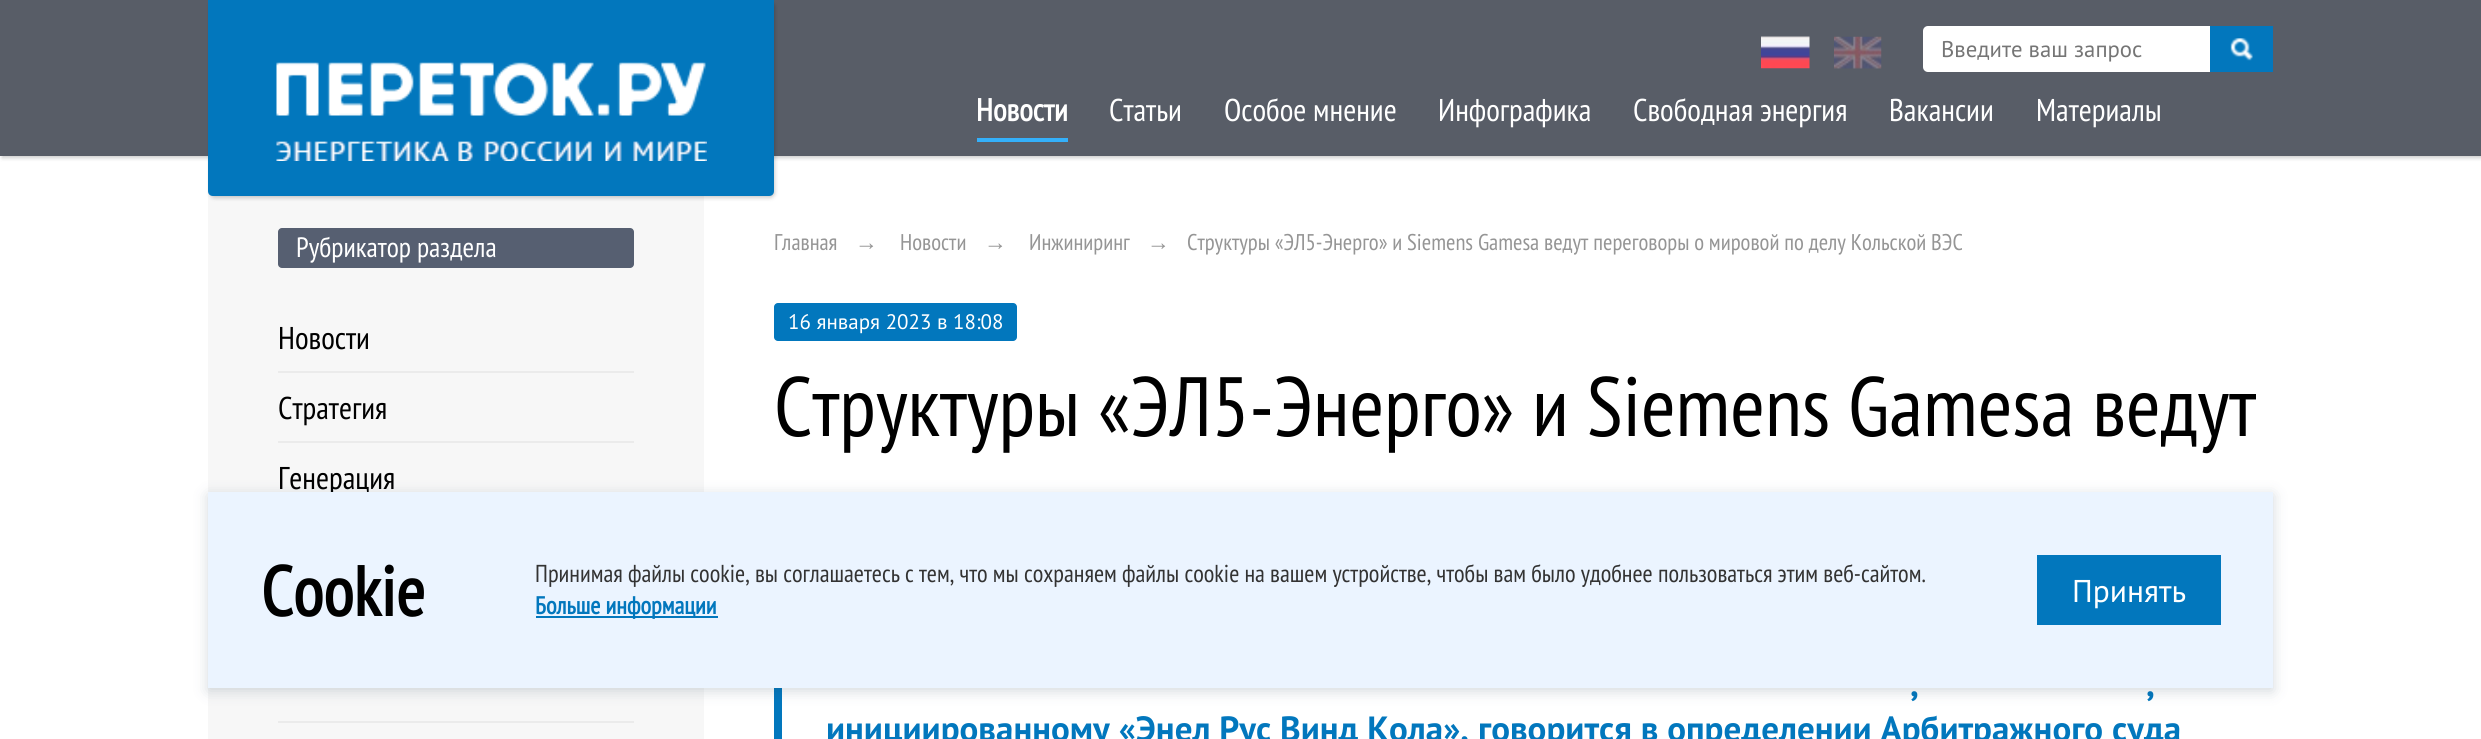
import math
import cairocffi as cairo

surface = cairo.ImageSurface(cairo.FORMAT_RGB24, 2481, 739)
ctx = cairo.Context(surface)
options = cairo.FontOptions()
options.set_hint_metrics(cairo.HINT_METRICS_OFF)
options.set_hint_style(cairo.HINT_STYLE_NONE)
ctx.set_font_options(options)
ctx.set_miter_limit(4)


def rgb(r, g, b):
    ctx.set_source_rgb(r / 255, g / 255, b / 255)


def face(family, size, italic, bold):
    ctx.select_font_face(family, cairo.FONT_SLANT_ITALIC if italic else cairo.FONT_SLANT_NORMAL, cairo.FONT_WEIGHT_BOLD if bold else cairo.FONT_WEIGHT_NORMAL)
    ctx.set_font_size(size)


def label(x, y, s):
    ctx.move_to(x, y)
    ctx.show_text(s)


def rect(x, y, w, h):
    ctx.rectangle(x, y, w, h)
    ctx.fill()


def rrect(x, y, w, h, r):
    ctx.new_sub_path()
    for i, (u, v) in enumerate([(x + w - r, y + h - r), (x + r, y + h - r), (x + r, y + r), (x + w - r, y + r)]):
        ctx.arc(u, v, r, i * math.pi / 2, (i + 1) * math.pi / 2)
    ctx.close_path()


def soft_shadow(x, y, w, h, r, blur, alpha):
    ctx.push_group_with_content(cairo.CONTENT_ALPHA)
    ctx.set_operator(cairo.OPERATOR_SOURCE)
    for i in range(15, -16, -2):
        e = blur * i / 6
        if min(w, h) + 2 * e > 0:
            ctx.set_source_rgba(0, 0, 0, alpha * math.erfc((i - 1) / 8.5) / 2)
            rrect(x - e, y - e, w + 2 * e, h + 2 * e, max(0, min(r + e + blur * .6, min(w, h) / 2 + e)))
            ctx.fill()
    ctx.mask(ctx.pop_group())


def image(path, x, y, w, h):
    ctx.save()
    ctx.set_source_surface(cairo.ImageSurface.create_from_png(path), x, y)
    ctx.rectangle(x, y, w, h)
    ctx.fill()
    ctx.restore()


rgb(255, 255, 255)
ctx.paint()
rgb(0, 0, 0)
soft_shadow(2, 2, 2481, 156, 0, 2, 0.2)
rgb(88, 93, 103)
rect(0, 0, 2481, 156)
rgb(247, 247, 247)
rect(208, 193, 496, 546)
rgb(0, 0, 0)
soft_shadow(210, 2, 565, 196, 5, 2, 0.2)
rgb(2, 119, 189)
ctx.new_path()
ctx.move_to(208, 0)
ctx.line_to(774, 0)
ctx.line_to(774, 191)
ctx.curve_to(774, 194, 772, 196, 769, 196)
ctx.line_to(213, 196)
ctx.curve_to(210, 196, 208, 194, 208, 191)
ctx.close_path()
ctx.fill()
image('image0.png', 276, 62, 431, 99)
image('image1.png', 1761, 36, 49, 33)
image('image2.png', 1834, 36, 48, 33)
rgb(255, 255, 255)
rrect(1923, 26, 350, 46, 5)
ctx.fill()
face('PT Sans', 22.75, 0, 0)
rgb(117, 117, 117)
label(1941, 57, 'Введите ваш запрос')
rgb(2, 119, 189)
rect(2210, 26, 63, 46)
image('image3.png', 2230, 38, 23, 23)
face('PT Sans Narrow', 31.5, 0, 1)
rgb(255, 255, 255)
label(976, 121, 'Новости')
rgb(52, 176, 250)
rect(977, 138, 91, 4)
face('PT Sans Narrow', 31.5, 0, 0)
rgb(255, 255, 255)
label(1109, 121, 'Статьи')
label(1224, 121, 'Особое мнение')
label(1438, 121, 'Инфографика')
label(1633, 121, 'Свободная энергия')
label(1889, 121, 'Вакансии')
label(2036, 121, 'Материалы')
rgb(86, 95, 113)
rrect(278, 228, 356, 40, 4)
ctx.fill()
face('PT Sans Narrow', 28, 0, 0)
rgb(255, 255, 255)
label(296, 257, 'Рубрикатор раздела')
rgb(235, 235, 235)
rect(278, 371, 356, 2)
face('PT Sans Narrow', 31.5, 0, 0)
rgb(0, 0, 0)
label(278, 349, 'Новости')
rgb(235, 235, 235)
rect(278, 441, 356, 2)
rgb(0, 0, 0)
label(278, 419, 'Стратегия')
label(278, 489, 'Генерация')
rgb(235, 235, 235)
rect(278, 721, 356, 2)
face('PT Sans Narrow', 22.75, 0, 0)
rgb(149, 149, 149)
label(774, 250, 'Главная')
face('Liberation Sans', 22.75, 0, 0)
label(855, 250, '→')
face('PT Sans Narrow', 22.75, 0, 0)
label(900, 250, 'Новости')
face('Liberation Sans', 22.75, 0, 0)
label(984, 250, '→')
face('PT Sans Narrow', 22.75, 0, 0)
label(1029, 250, 'Инжиниринг')
face('Liberation Sans', 22.75, 0, 0)
label(1147, 250, '→')
face('PT Sans Narrow', 22.75, 0, 0)
label(1187, 250, 'Структуры «ЭЛ5-Энерго» и Siemens Gamesa ведут переговоры о мировой по делу Кольской ВЭС')
rgb(2, 119, 189)
rrect(774, 303, 243, 38, 4)
ctx.fill()
face('PT Sans', 21, 0, 0)
rgb(255, 255, 255)
label(788, 329, '16 января 2023 в 18:08')
face('PT Sans Narrow', 84, 0, 0)
rgb(0, 0, 0)
label(774, 436, 'Структуры «ЭЛ5-Энерго» и Siemens Gamesa ведут')
rgb(2, 119, 189)
rect(774, 688, 8, 51)
face('PT Sans', 35, 0, 1)
label(1910, 696, ',')
label(2146, 696, ',')
label(826, 741, 'инициированному «Энел Рус Винд Кола», говорится в определении Арбитражного суда')
rgb(34, 60, 80)
soft_shadow(208, 495, 2065, 196, 0, 7, 0.2)
rgb(235, 244, 255)
rect(208, 492, 2065, 196)
face('PT Sans Narrow', 70, 0, 1)
rgb(0, 0, 0)
label(261, 616, 'Cookie')
face('PT Sans Narrow', 24.5, 0, 0)
rgb(51, 51, 51)
label(535, 582, 'Принимая файлы cookie, вы соглашаетесь с тем, что мы сохраняем файлы cookie на вашем устройстве, чтобы вам было удобнее пользоваться этим веб-сайтом.')
rgb(2, 119, 189)
rect(536, 616, 182, 2)
face('PT Sans Narrow', 24.5, 0, 1)
label(535, 614, 'Больше информации')
rect(2037, 555, 184, 70)
face('PT Sans', 31.5, 0, 0)
rgb(255, 255, 255)
label(2072, 602, 'Принять')
surface.write_to_png('render.png')
